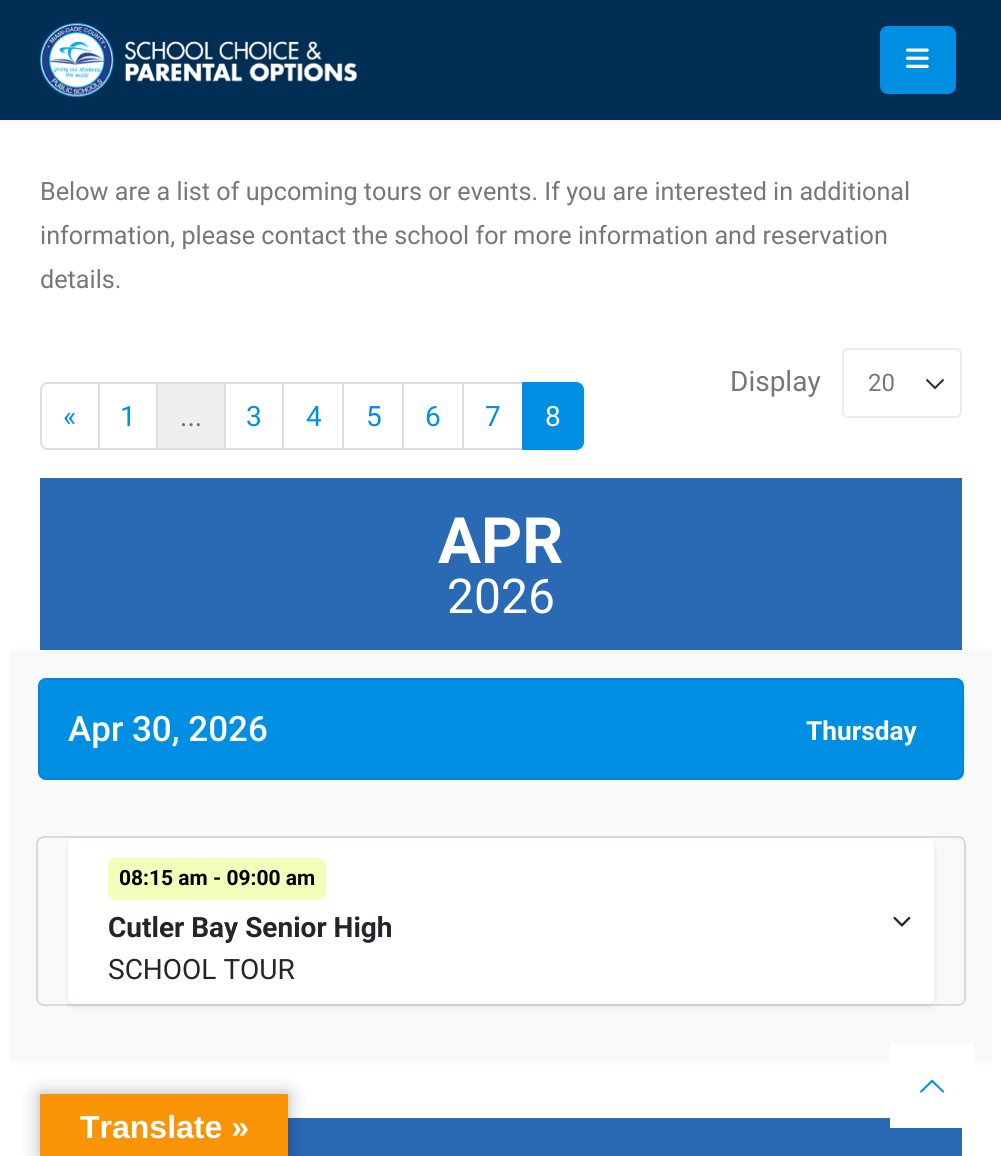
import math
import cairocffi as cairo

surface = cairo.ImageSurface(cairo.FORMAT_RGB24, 1001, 1156)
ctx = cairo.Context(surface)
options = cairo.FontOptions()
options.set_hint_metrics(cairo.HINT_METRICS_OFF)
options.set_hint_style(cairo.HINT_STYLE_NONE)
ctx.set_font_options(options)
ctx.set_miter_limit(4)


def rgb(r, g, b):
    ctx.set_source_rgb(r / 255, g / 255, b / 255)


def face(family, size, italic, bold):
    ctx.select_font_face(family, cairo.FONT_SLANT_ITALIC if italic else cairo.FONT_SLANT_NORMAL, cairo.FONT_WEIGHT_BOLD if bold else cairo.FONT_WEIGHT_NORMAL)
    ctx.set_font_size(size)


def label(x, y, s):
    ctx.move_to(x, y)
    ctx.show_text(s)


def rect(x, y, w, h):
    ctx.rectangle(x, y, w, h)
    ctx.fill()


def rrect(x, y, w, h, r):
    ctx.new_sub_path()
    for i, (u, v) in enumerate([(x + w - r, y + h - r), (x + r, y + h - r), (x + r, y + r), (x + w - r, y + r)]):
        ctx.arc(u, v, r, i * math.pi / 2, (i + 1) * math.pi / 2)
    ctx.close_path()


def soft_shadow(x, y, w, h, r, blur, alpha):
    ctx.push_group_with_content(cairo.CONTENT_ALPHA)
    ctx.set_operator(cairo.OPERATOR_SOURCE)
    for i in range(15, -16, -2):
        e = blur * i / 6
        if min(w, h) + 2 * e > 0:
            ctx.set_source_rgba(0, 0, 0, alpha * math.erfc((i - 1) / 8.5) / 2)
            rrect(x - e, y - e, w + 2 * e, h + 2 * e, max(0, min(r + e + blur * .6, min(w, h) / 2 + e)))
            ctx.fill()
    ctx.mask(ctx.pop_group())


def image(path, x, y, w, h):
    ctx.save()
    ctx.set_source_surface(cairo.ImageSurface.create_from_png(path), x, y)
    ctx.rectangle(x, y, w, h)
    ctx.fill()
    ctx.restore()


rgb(255, 255, 255)
ctx.paint()
rgb(0, 0, 0)
soft_shadow(0, 0, 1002, 120, 0, 3, 0.06)
rgb(0, 46, 84)
rect(0, 0, 1001, 120)
image('image0.png', 40, 23, 318, 74)
rgb(0, 143, 226)
rrect(880, 26, 76, 68, 8)
ctx.fill()
image('image1.png', 906, 48, 23, 20)
face('Roboto', 25.2, 0, 0)
rgb(119, 119, 119)
label(40, 200, 'Below are a list of upcoming tours or events. If you are interested in additional')
label(40, 244, 'information, please contact the school for more information and reservation')
label(40, 288, 'details.')
face('Roboto', 28, 0, 0)
label(730, 391, 'Display')
rgb(51, 51, 51)
ctx.set_fill_rule(cairo.FILL_RULE_EVEN_ODD)
ctx.new_path()
ctx.move_to(935, 389.5)
ctx.line_to(944, 380.5)
ctx.line_to(943, 378.5)
ctx.line_to(935, 386.5)
ctx.line_to(927, 378.5)
ctx.line_to(926, 380.5)
ctx.close_path()
ctx.fill()
rrect(843, 349, 118, 68, 5)
rgb(235, 235, 235)
ctx.stroke()
face('Roboto', 24, 0, 0)
rgb(119, 119, 119)
label(868, 391, '20')
ctx.new_path()
ctx.move_to(48, 383)
ctx.line_to(99, 383)
ctx.line_to(99, 449)
ctx.line_to(48, 449)
ctx.curve_to(44, 449, 41, 446, 41, 442)
ctx.line_to(41, 390)
ctx.curve_to(41, 386, 44, 383, 48, 383)
ctx.close_path()
rgb(221, 221, 221)
ctx.stroke()
face('Roboto', 28, 0, 0)
rgb(0, 143, 226)
label(63, 426, '«')
ctx.rectangle(99, 383, 58, 66)
rgb(221, 221, 221)
ctx.stroke()
rgb(0, 143, 226)
label(120, 426, '1')
rgb(239, 239, 239)
ctx.rectangle(157, 383, 68, 66)
ctx.fill_preserve()
rgb(221, 221, 221)
ctx.stroke()
ctx.rectangle(225, 383, 58, 66)
ctx.stroke()
rgb(0, 143, 226)
label(246, 426, '3')
ctx.rectangle(283, 383, 60, 66)
rgb(221, 221, 221)
ctx.stroke()
rgb(0, 143, 226)
label(306, 426, '4')
ctx.rectangle(343, 383, 60, 66)
rgb(221, 221, 221)
ctx.stroke()
rgb(0, 143, 226)
label(366, 426, '5')
ctx.rectangle(403, 383, 60, 66)
rgb(221, 221, 221)
ctx.stroke()
rgb(0, 143, 226)
label(425, 426, '6')
ctx.rectangle(463, 383, 60, 66)
rgb(221, 221, 221)
ctx.stroke()
rgb(0, 143, 226)
label(485, 426, '7')
ctx.new_path()
ctx.move_to(523, 383)
ctx.line_to(576, 383)
ctx.curve_to(580, 383, 583, 386, 583, 390)
ctx.line_to(583, 442)
ctx.curve_to(583, 446, 580, 449, 576, 449)
ctx.line_to(523, 449)
ctx.close_path()
ctx.fill_preserve()
ctx.stroke()
rgb(255, 255, 255)
label(545, 426, '8')
rgb(108, 117, 125)
label(180, 426, '...')
rgb(42, 105, 180)
rect(40, 478, 922, 172)
face('Roboto', 64, 0, 1)
rgb(255, 255, 255)
label(438, 563, 'APR')
face('Roboto', 48, 0, 0)
label(447, 613, '2026')
rgb(248, 249, 250)
rect(10, 650, 982, 412)
rgb(0, 143, 226)
rrect(39, 679, 924, 100, 7)
ctx.fill_preserve()
rgb(0, 134, 211)
ctx.stroke()
face('Roboto Medium', 35, 0, 0)
rgb(255, 255, 255)
label(68, 741, 'Apr 30, 2026')
face('Roboto', 26.25, 0, 1)
label(806, 740, 'Thursday')
rrect(37, 837, 928, 168, 7)
rgb(217, 218, 219)
ctx.stroke()
rgb(0, 0, 0)
soft_shadow(68, 842, 866, 166, 6, 3.5, 0.07)
rgb(255, 255, 255)
rrect(68, 838, 866, 166, 6)
ctx.fill()
rgb(241, 255, 186)
rrect(108, 858, 218, 42, 8)
ctx.fill()
face('Roboto', 21, 0, 1)
rgb(0, 0, 0)
label(119, 885, '08:15 am - 09:00 am')
face('Roboto', 28, 0, 1)
rgb(34, 37, 41)
label(108, 937, 'Cutler Bay Senior High')
image('image2.png', 893, 916, 18, 11)
face('Roboto', 28, 0, 0)
label(108, 979, 'SCHOOL TOUR')
rgb(42, 105, 180)
rect(288, 1118, 674, 38)
rgb(0, 0, 0)
soft_shadow(40, 1094, 248, 62, 0, 9, 0.3)
rgb(248, 148, 6)
rect(40, 1094, 248, 62)
face('Liberation Sans', 32, 0, 1)
rgb(255, 255, 255)
label(80, 1138, 'Translate »')
rect(890, 1044, 84, 84)
image('image3.png', 920, 1079, 25, 14)
surface.write_to_png('render.png')
